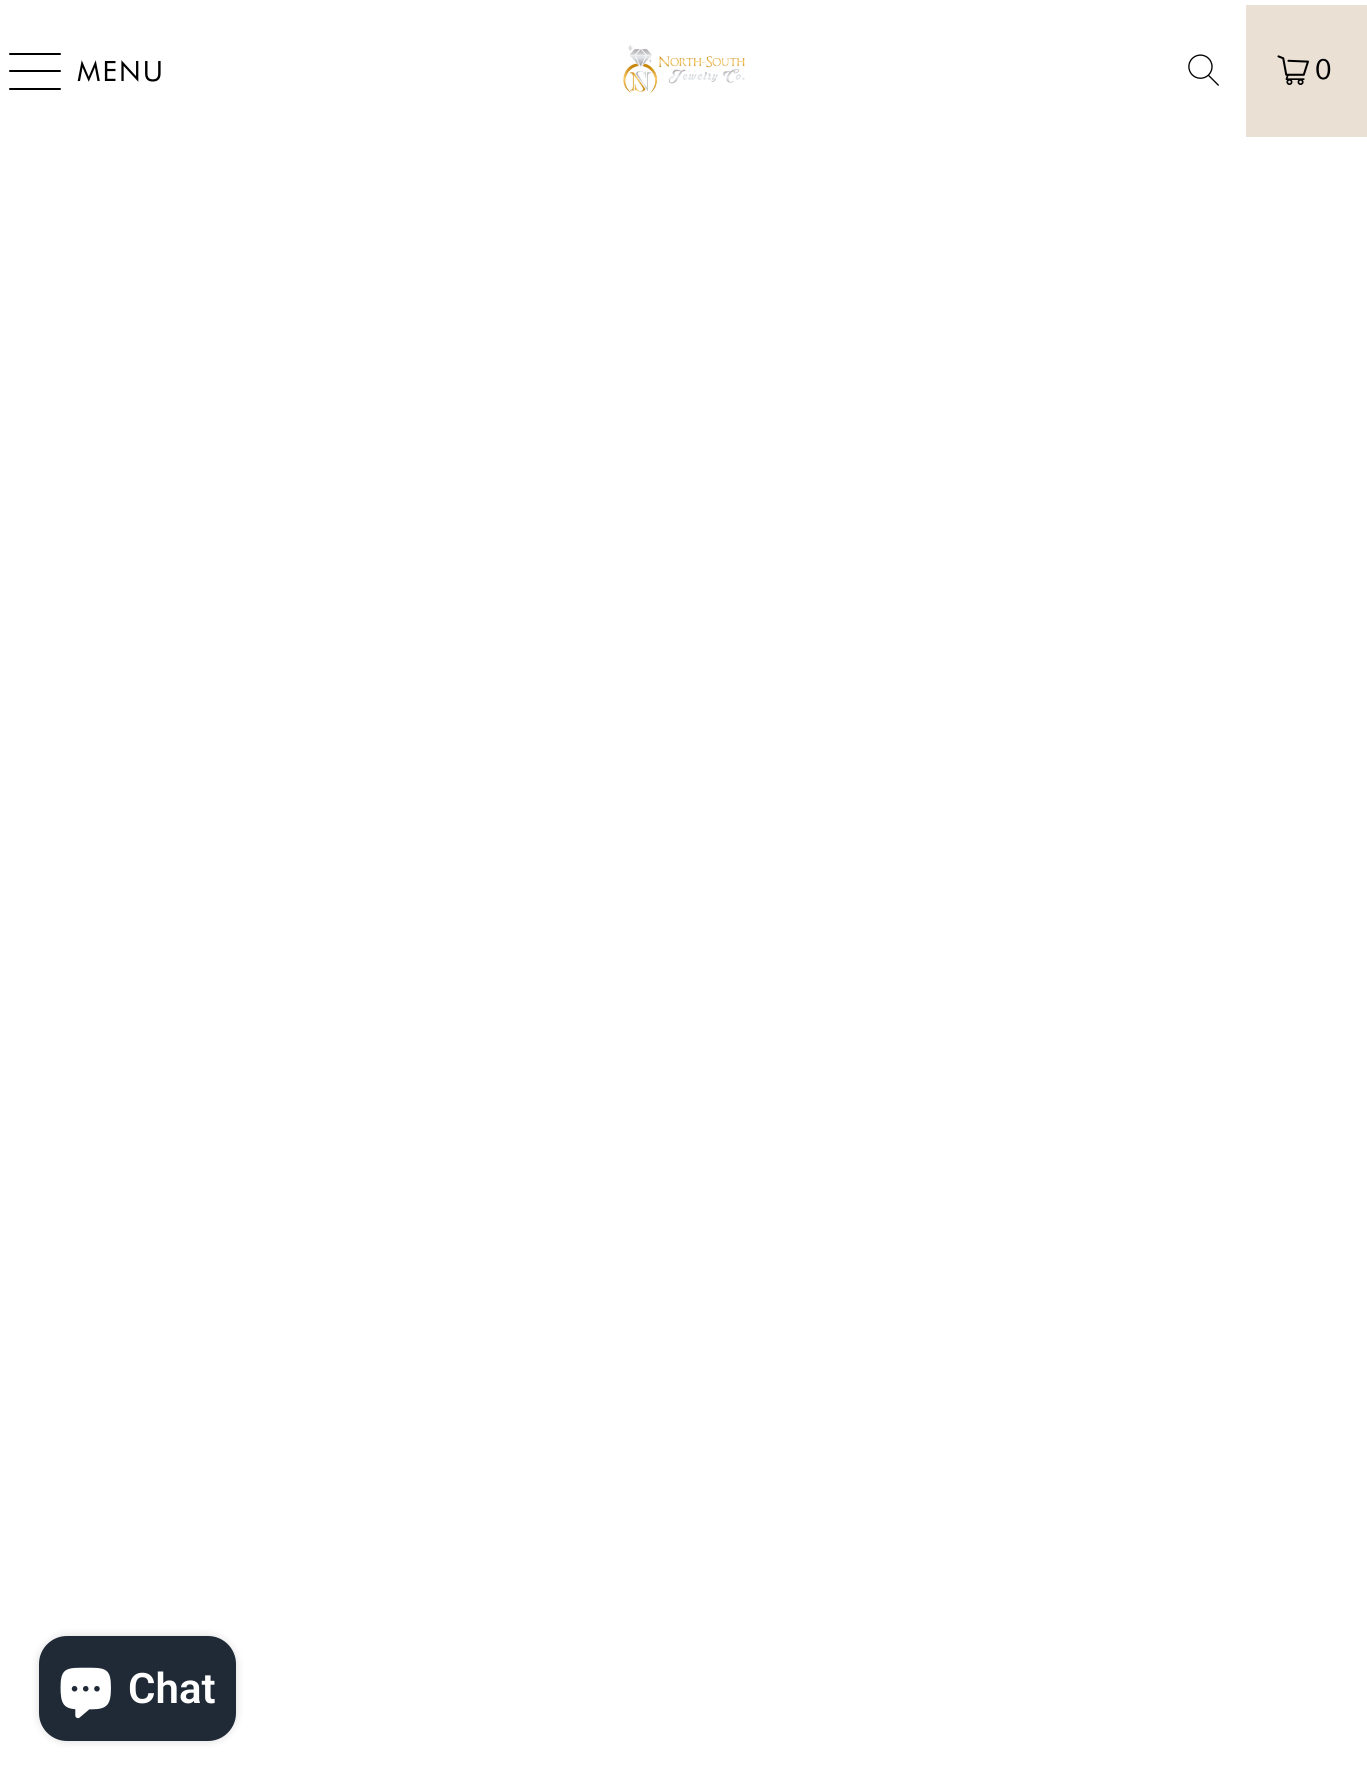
import math
import cairocffi as cairo

surface = cairo.ImageSurface(cairo.FORMAT_RGB24, 1367, 1778)
ctx = cairo.Context(surface)
options = cairo.FontOptions()
options.set_hint_metrics(cairo.HINT_METRICS_OFF)
options.set_hint_style(cairo.HINT_STYLE_NONE)
ctx.set_font_options(options)
ctx.set_miter_limit(4)


def rgb(r, g, b):
    ctx.set_source_rgb(r / 255, g / 255, b / 255)


def face(family, size, italic, bold):
    ctx.select_font_face(family, cairo.FONT_SLANT_ITALIC if italic else cairo.FONT_SLANT_NORMAL, cairo.FONT_WEIGHT_BOLD if bold else cairo.FONT_WEIGHT_NORMAL)
    ctx.set_font_size(size)


def label(x, y, s):
    ctx.move_to(x, y)
    ctx.show_text(s)


def tracked(x, y, s, letter, word):
    ctx.move_to(x, y)
    for ch in s:
        ctx.show_text(ch)
        ctx.rel_move_to(letter + word * (ch == ' '), 0)


def rect(x, y, w, h):
    ctx.rectangle(x, y, w, h)
    ctx.fill()


def rrect(x, y, w, h, r):
    ctx.new_sub_path()
    for i, (u, v) in enumerate([(x + w - r, y + h - r), (x + r, y + h - r), (x + r, y + r), (x + w - r, y + r)]):
        ctx.arc(u, v, r, i * math.pi / 2, (i + 1) * math.pi / 2)
    ctx.close_path()


def soft_shadow(x, y, w, h, r, blur, alpha):
    ctx.push_group_with_content(cairo.CONTENT_ALPHA)
    ctx.set_operator(cairo.OPERATOR_SOURCE)
    for i in range(15, -16, -2):
        e = blur * i / 6
        if min(w, h) + 2 * e > 0:
            ctx.set_source_rgba(0, 0, 0, alpha * math.erfc((i - 1) / 8.5) / 2)
            rrect(x - e, y - e, w + 2 * e, h + 2 * e, max(0, min(r + e + blur * .6, min(w, h) / 2 + e)))
            ctx.fill()
    ctx.mask(ctx.pop_group())


def image(path, x, y, w, h):
    ctx.save()
    ctx.set_source_surface(cairo.ImageSurface.create_from_png(path), x, y)
    ctx.rectangle(x, y, w, h)
    ctx.fill()
    ctx.restore()


rgb(255, 255, 255)
ctx.paint()
rgb(0, 0, 0)
rrect(9, 53, 52, 2, 1)
ctx.fill()
rrect(9, 70, 52, 2, 1)
ctx.fill()
rrect(9, 88, 52, 2, 1)
ctx.fill()
face('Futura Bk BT', 28, 0, 0)
tracked(77, 81, 'MENU', 2, 0)
image('image0.png', 623, 45, 122, 49)
image('image1.png', 1188, 54, 31, 32)
rgb(234, 224, 212)
rect(1246, 5, 121, 132)
image('image2.png', 1277, 55, 32, 30)
rgb(0, 0, 0)
tracked(1315, 79, '0', 2, 0)
rgb(0, 0, 0)
soft_shadow(39, 1636, 197, 105, 28, 4.5, 0.15)
rgb(32, 42, 54)
rrect(39, 1636, 197, 105, 28)
ctx.fill()
image('image3.png', 60, 1667, 51, 52)
face('Roboto SemiBold', 42, 0, 0)
rgb(255, 255, 255)
label(128, 1703, 'Chat')
surface.write_to_png('render.png')
